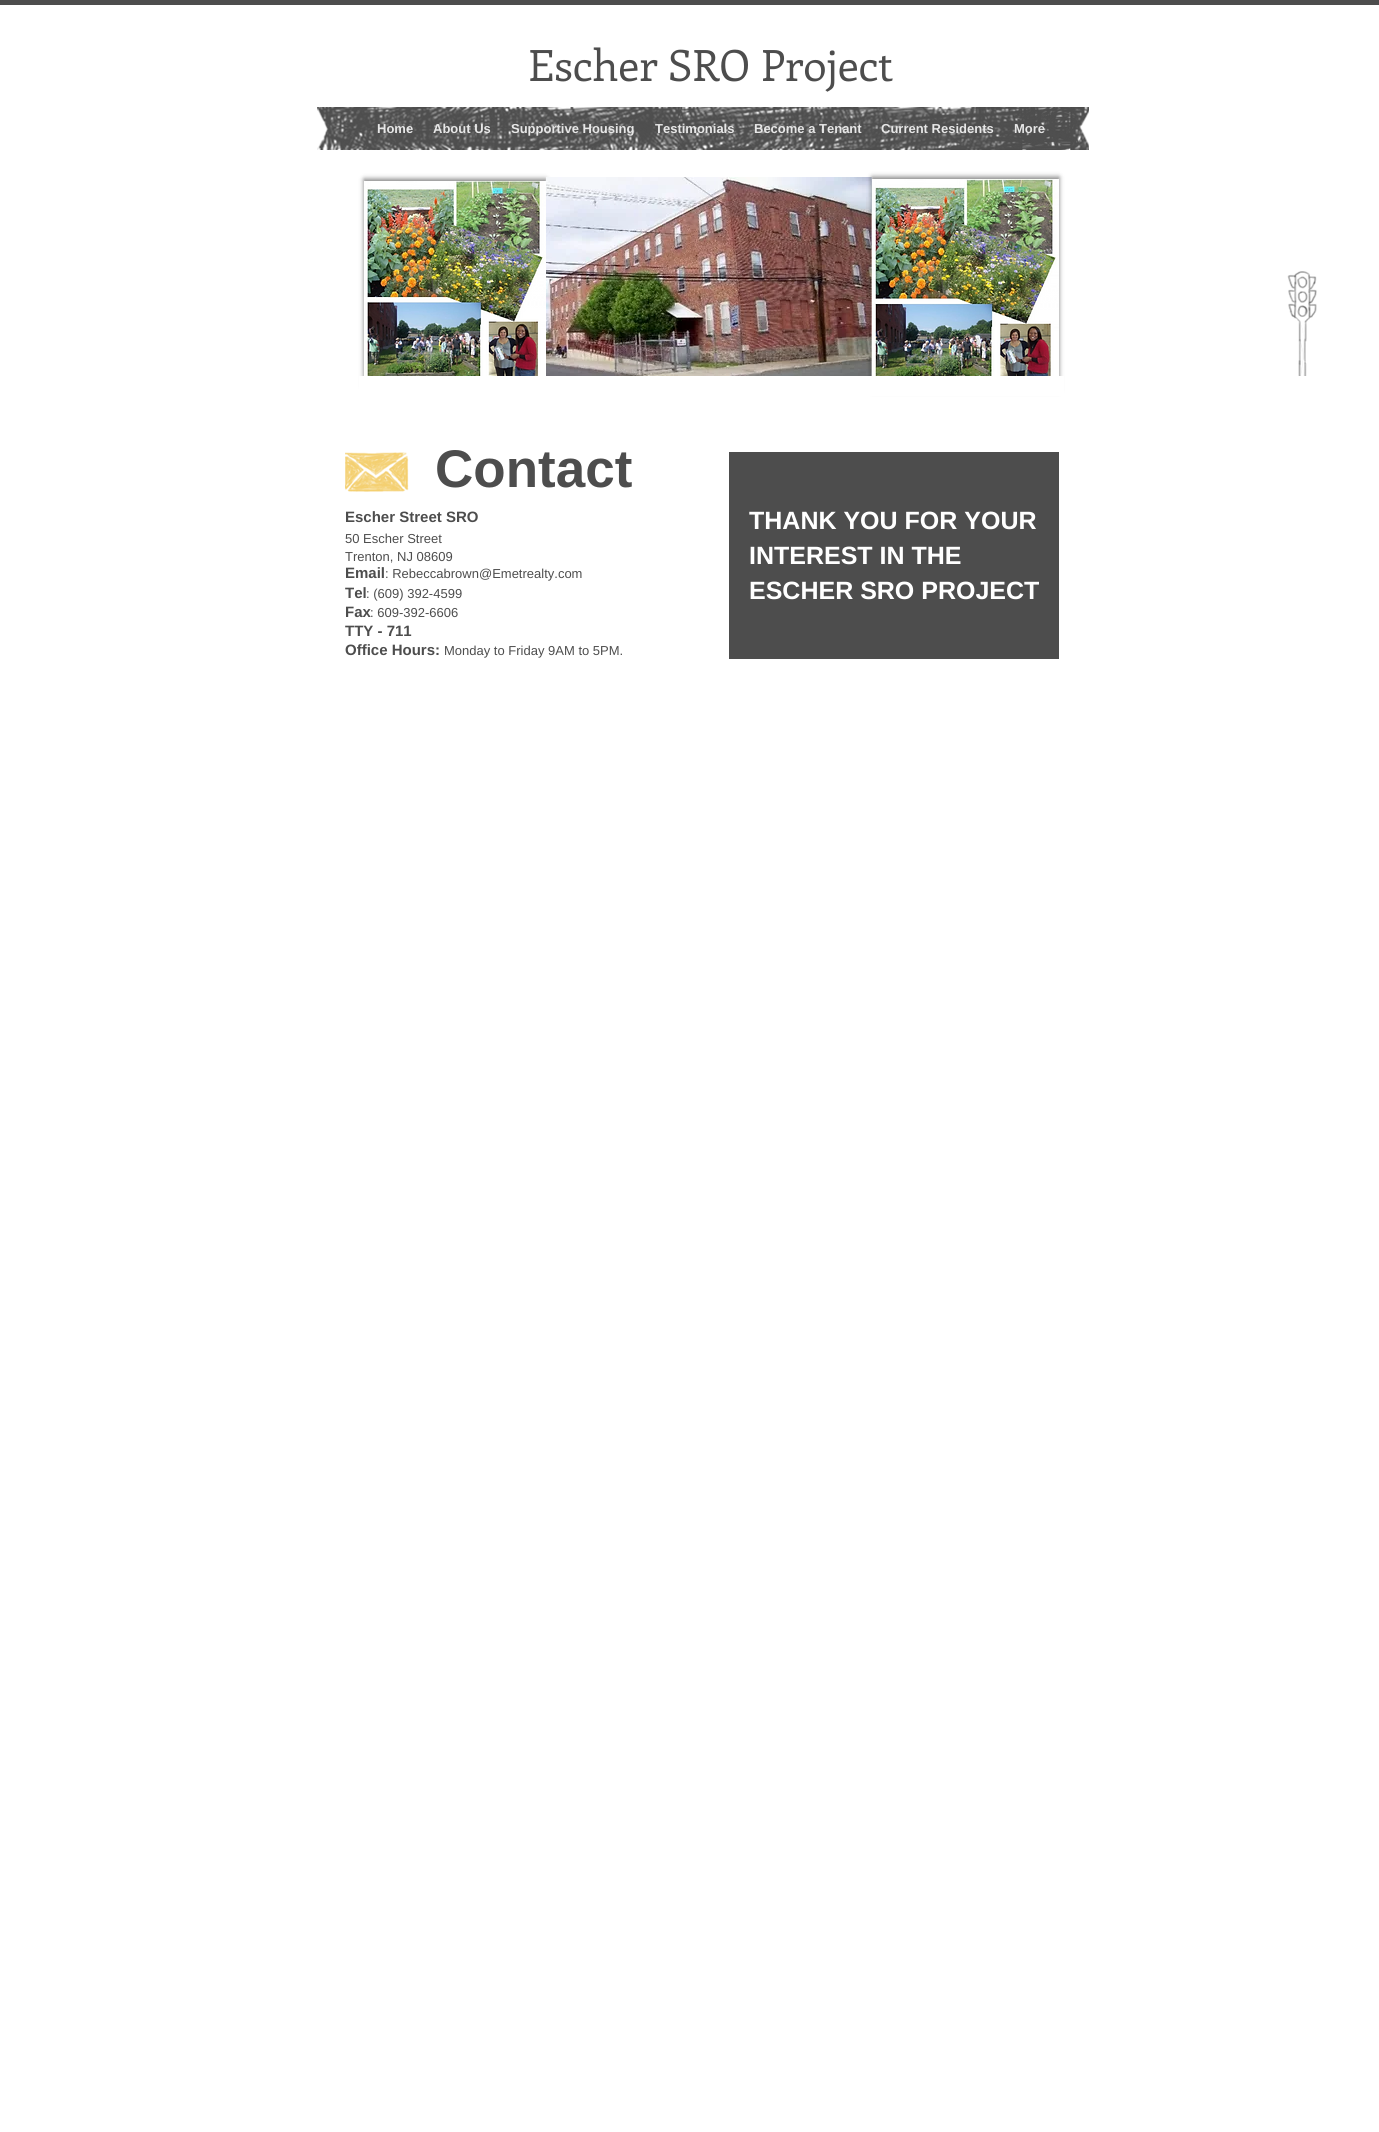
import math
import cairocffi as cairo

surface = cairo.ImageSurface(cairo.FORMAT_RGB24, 1379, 2132)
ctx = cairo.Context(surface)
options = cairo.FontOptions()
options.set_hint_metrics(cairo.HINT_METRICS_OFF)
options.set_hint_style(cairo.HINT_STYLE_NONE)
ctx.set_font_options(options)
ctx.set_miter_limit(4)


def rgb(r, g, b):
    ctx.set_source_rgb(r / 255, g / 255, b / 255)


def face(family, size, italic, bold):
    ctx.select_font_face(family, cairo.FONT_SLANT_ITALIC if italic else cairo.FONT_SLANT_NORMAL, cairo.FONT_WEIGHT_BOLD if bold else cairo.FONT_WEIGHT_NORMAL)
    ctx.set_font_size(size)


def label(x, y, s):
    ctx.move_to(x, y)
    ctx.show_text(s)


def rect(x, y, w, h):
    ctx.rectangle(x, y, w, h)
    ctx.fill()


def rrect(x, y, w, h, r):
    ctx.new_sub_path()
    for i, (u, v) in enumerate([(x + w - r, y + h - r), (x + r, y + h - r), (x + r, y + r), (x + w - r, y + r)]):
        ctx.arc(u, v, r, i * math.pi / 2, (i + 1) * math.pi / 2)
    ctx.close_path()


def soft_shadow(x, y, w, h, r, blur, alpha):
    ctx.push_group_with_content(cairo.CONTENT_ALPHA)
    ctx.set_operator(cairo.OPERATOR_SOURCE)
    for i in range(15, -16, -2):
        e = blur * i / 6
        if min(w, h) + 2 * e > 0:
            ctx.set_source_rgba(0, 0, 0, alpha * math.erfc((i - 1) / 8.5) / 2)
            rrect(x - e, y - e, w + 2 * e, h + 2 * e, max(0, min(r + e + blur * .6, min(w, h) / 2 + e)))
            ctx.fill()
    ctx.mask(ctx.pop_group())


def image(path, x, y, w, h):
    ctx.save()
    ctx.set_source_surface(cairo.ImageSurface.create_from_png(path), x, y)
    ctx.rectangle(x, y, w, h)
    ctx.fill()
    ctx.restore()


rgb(255, 255, 255)
ctx.paint()
rgb(77, 77, 77)
rect(0, 0, 1379, 5)
face('Enriqueta', 43, 0, 0)
label(528, 81, 'Escher SRO Project')
image('image0.png', 317, 107, 772, 43)
face('Liberation Sans', 13, 0, 1)
rgb(231, 231, 231)
label(377, 133, 'Home')
label(433, 133, 'About Us')
label(511, 133, 'Supportive Housing')
label(655, 133, 'Testimonials')
label(754, 133, 'Become a Tenant')
label(881, 133, 'Current Residents')
label(1014, 133, 'More')
rgb(0, 0, 0)
soft_shadow(364, 179, 182, 208, 0, 2.5, 0.5)
image('image1.png', 364, 181, 182, 195)
image('image2.png', 546, 177, 326, 199)
soft_shadow(872, 177, 187, 214, 0, 2.5, 0.5)
image('image3.png', 872, 179, 187, 197)
image('image4.png', 1287, 271, 30, 105)
rgb(255, 255, 255)
rect(359, 376, 705, 20)
image('image5.png', 345, 452, 64, 40)
face('Liberation Sans', 53, 0, 1)
rgb(77, 77, 77)
label(435, 487, 'Contact')
face('Liberation Sans', 15, 0, 1)
label(345, 522, 'Escher Street SRO')
face('Liberation Sans', 13, 0, 0)
label(345, 543, '50 Escher Street')
label(345, 561, 'Trenton, NJ 08609')
face('Liberation Sans', 15, 0, 1)
label(345, 578, 'Email')
face('Liberation Sans', 13, 0, 0)
label(385, 578, ': Rebeccabrown@Emetrealty.com')
face('Liberation Sans', 15, 0, 1)
label(345, 598, 'Tel')
face('Liberation Sans', 13, 0, 0)
label(366, 598, ': (609) 392-4599')
face('Liberation Sans', 15, 0, 1)
label(345, 617, 'Fax')
face('Liberation Sans', 13, 0, 0)
label(370, 617, ': 609-392-6606')
face('Liberation Sans', 15, 0, 1)
label(345, 636, 'TTY - 711')
label(345, 655, 'Office Hours:')
face('Liberation Sans', 13, 0, 0)
label(444, 655, 'Monday to Friday 9AM to 5PM.')
rect(729, 452, 330, 207)
face('Liberation Sans', 25, 0, 1)
rgb(255, 255, 255)
label(749, 529, 'THANK YOU FOR YOUR')
label(749, 564, 'INTEREST IN THE')
label(749, 599, 'ESCHER SRO PROJECT')
surface.write_to_png('render.png')
